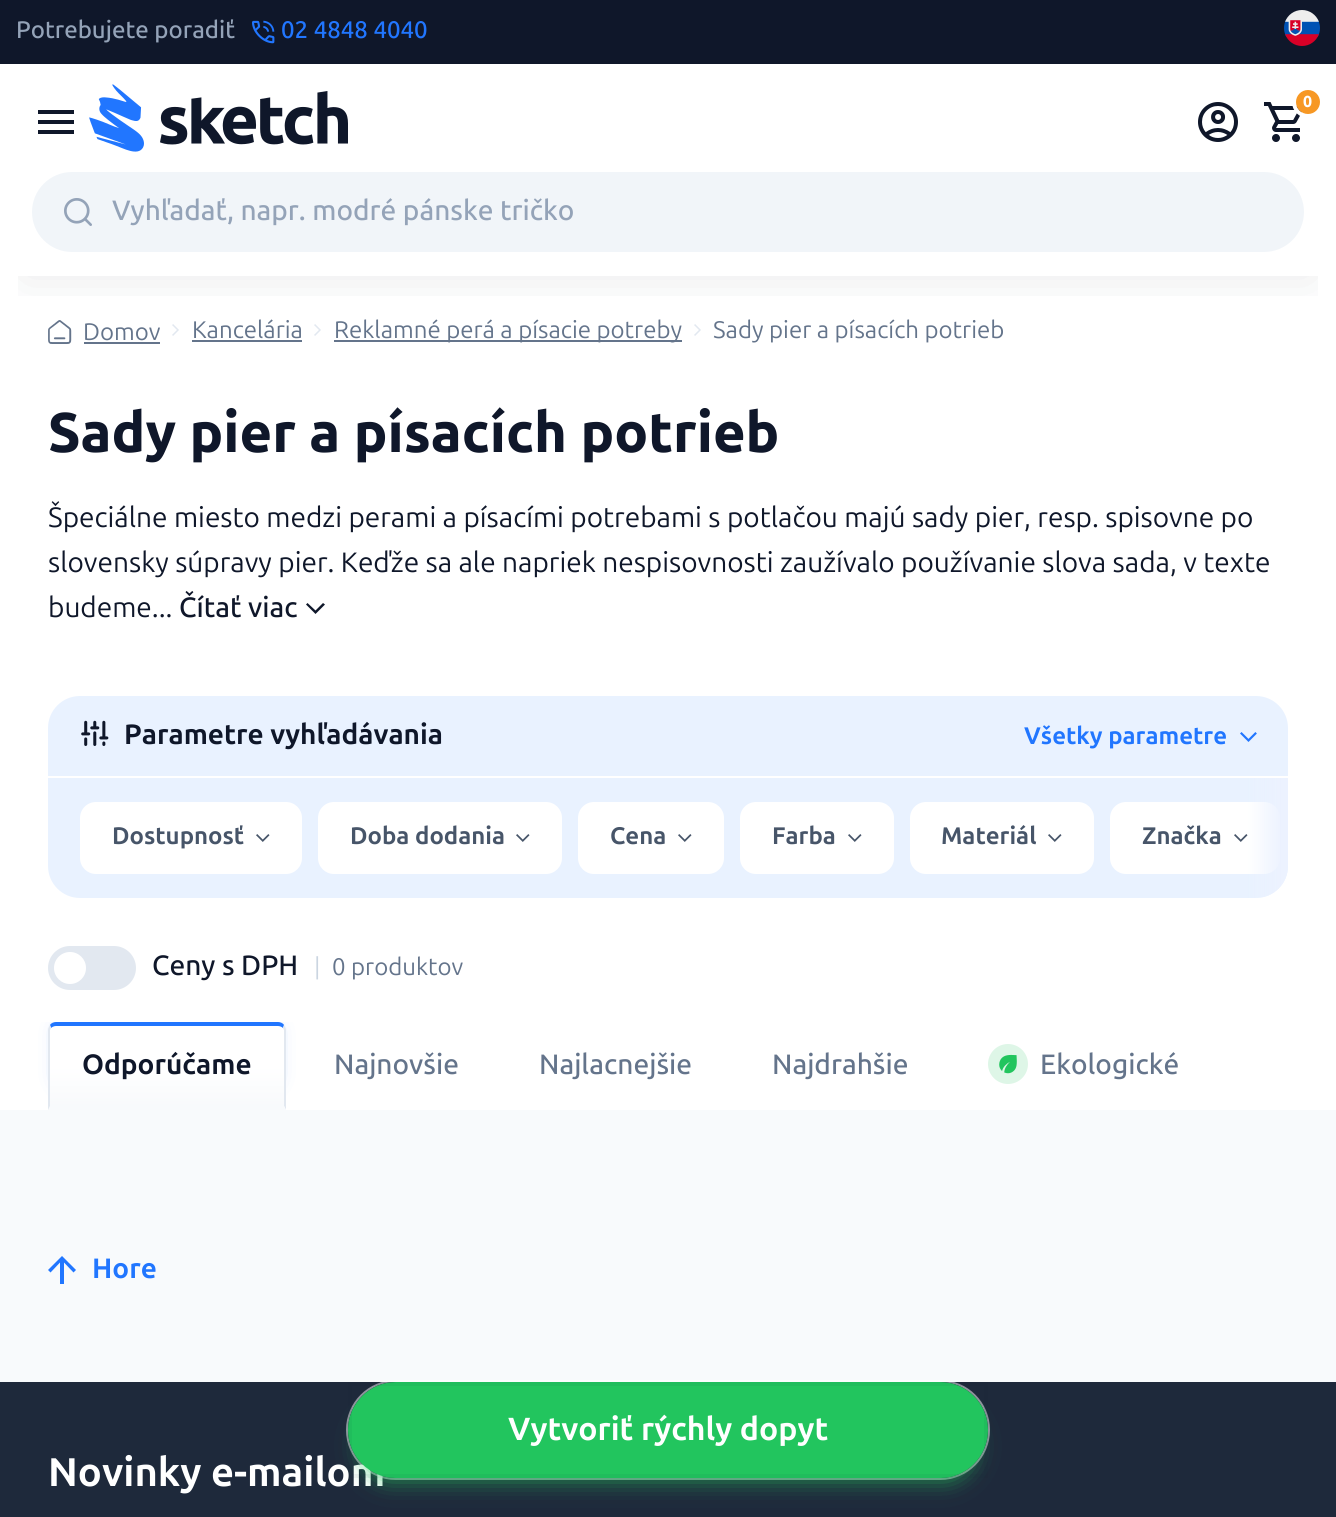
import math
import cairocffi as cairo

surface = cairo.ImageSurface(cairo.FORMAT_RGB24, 1336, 1517)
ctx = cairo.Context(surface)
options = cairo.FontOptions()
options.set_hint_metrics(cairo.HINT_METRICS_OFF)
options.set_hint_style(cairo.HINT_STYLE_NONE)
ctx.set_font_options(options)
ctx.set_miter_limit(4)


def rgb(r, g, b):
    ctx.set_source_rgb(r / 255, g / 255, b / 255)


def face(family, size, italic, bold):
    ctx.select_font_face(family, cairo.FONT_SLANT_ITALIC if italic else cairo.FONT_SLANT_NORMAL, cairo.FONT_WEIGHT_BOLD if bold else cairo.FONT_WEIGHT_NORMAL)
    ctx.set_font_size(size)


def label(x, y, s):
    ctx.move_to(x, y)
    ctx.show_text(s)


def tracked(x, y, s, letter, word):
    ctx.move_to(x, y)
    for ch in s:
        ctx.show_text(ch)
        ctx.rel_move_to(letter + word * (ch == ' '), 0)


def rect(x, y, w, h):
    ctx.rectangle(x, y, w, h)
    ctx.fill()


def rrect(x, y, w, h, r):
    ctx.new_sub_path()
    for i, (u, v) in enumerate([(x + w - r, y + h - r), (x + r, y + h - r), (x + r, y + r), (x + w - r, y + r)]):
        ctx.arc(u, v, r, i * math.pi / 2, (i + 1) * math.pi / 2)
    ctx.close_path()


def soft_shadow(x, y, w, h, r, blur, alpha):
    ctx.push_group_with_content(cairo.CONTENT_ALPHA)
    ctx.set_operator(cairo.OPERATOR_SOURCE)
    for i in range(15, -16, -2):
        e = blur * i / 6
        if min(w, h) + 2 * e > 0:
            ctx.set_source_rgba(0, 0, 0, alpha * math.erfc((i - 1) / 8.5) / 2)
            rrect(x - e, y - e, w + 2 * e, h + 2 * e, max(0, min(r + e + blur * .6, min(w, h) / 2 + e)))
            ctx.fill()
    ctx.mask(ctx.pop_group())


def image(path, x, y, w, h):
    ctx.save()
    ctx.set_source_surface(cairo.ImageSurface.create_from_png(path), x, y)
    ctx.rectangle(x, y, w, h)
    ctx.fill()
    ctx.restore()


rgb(255, 255, 255)
ctx.paint()
image('image6.png', 48, 320, 24, 24)
rgb(100, 116, 139)
rect(84, 342, 76, 2)
image('image7.png', 172, 324, 7, 12)
rect(192, 340, 110, 2)
image('image7.png', 314, 324, 7, 12)
rect(334, 340, 348, 2)
image('image7.png', 694, 324, 7, 12)
ctx.save()
ctx.rectangle(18, 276, 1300, 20)
ctx.clip()
rgb(15, 23, 42)
soft_shadow(24, 112, 1288, 164, 0, 24, 0.1)
ctx.restore()
rgb(15, 23, 42)
rect(0, 0, 1336, 64)
face('Ubuntu Sans Medium', 24, 0, 0)
rgb(148, 163, 184)
label(16, 38, 'Potrebujete poradiť')
image('image0.png', 252, 20, 23, 24)
rgb(33, 118, 255)
label(281, 38, '02 4848 4040')
image('image1.png', 1284, 10, 36, 36)
image('image2.png', 89, 84, 259, 68)
image('image3.png', 1198, 102, 40, 40)
image('image4.png', 1264, 102, 38, 40)
ctx.save()
ctx.rectangle(1248, 86, 72, 72)
ctx.clip()
ctx.arc(1308, 102, 14, 0, 2 * math.pi)
rgb(255, 255, 255)
ctx.set_line_width(4)
ctx.stroke()
ctx.restore()
rgb(247, 152, 36)
ctx.arc(1308, 102, 12, 0, 2 * math.pi)
ctx.fill()
face('Ubuntu Sans ExtraBold', 16, 0, 0)
rgb(255, 255, 255)
tracked(1303, 107, '0', -2, 0)
rgb(15, 23, 42)
ctx.new_path()
ctx.move_to(38, 134)
ctx.line_to(38, 130)
ctx.line_to(74, 130)
ctx.line_to(74, 134)
ctx.close_path()
ctx.move_to(38, 124)
ctx.line_to(38, 120)
ctx.line_to(74, 120)
ctx.line_to(74, 124)
ctx.close_path()
ctx.move_to(38, 114)
ctx.line_to(38, 110)
ctx.line_to(74, 110)
ctx.line_to(74, 114)
ctx.close_path()
ctx.fill()
rgb(241, 245, 249)
rrect(32, 172, 1272, 80, 40)
ctx.fill()
image('image5.png', 64, 198, 28, 28)
face('Ubuntu Sans Medium', 28, 0, 0)
rgb(148, 163, 184)
label(112, 220, 'Vyhľadať, napr. modré pánske tričko')
face('Ubuntu Sans', 24, 0, 0)
rgb(100, 116, 139)
label(83, 340, 'Domov')
label(192, 338, 'Kancelária')
label(334, 338, 'Reklamné perá a písacie potreby')
label(713, 338, 'Sady pier a písacích potrieb')
face('Ubuntu Sans ExtraBold', 56, 0, 0)
rgb(15, 23, 42)
label(48, 452, 'Sady pier a písacích potrieb')
face('Ubuntu Sans', 28, 0, 0)
label(48, 527, 'Špeciálne miesto medzi perami a písacími potrebami s potlačou majú sady pier, resp. spisovne po')
label(48, 572, 'slovensky súpravy pier. Keďže sa ale napriek nespisovnosti zaužívalo používanie slova sada, v texte')
label(48, 617, 'budeme...')
face('Ubuntu Sans Medium', 28, 0, 0)
label(179, 617, 'Čítať viac')
ctx.new_path()
ctx.move_to(315.5, 614)
ctx.line_to(306, 604.5)
ctx.line_to(307.5, 603)
ctx.line_to(315.5, 610.5)
ctx.line_to(323, 603)
ctx.line_to(325, 604.5)
ctx.close_path()
ctx.fill()
rgb(233, 242, 255)
rrect(48, 696, 1240, 202, 32)
ctx.fill()
rgb(255, 255, 255)
rect(48, 776, 1240, 2)
image('image8.png', 81, 720, 28, 26)
face('Ubuntu Sans', 28, 0, 1)
rgb(15, 23, 42)
label(124, 744, 'Parametre vyhľadávania')
face('Ubuntu Sans', 24, 0, 1)
rgb(33, 118, 255)
label(1024, 744, 'Všetky parametre')
image('image9.png', 1240, 732, 17, 10)
rgb(255, 255, 255)
rrect(80, 802, 222, 72, 16)
ctx.fill()
rgb(71, 85, 105)
label(112, 844, 'Dostupnosť')
image('image10.png', 256, 834, 14, 8)
rgb(255, 255, 255)
rrect(318, 802, 244, 72, 16)
ctx.fill()
rgb(71, 85, 105)
label(350, 844, 'Doba dodania')
image('image10.png', 516, 834, 14, 8)
rgb(255, 255, 255)
rrect(578, 802, 146, 72, 16)
ctx.fill()
rgb(71, 85, 105)
label(610, 844, 'Cena')
image('image10.png', 678, 834, 14, 8)
rgb(255, 255, 255)
rrect(740, 802, 154, 72, 16)
ctx.fill()
rgb(71, 85, 105)
label(772, 844, 'Farba')
image('image10.png', 848, 834, 14, 8)
rgb(255, 255, 255)
rrect(910, 802, 184, 72, 16)
ctx.fill()
rgb(71, 85, 105)
label(941, 844, 'Materiál')
image('image10.png', 1048, 834, 14, 8)
rgb(255, 255, 255)
rrect(1110, 802, 170, 72, 16)
ctx.fill()
rgb(71, 85, 105)
label(1142, 844, 'Značka')
image('image10.png', 1234, 834, 14, 8)
gradient = cairo.LinearGradient(1288, 838, 1248, 838)
gradient.add_color_stop_rgba(0.15, 0.925, 0.949, 1, 1)
gradient.add_color_stop_rgba(1, 0.925, 0.949, 1, 0)
ctx.set_source(gradient)
ctx.new_path()
ctx.move_to(1248, 778)
ctx.line_to(1288, 778)
ctx.line_to(1288, 866)
ctx.curve_to(1288, 883.5, 1273.5, 898, 1256, 898)
ctx.line_to(1248, 898)
ctx.close_path()
ctx.fill()
rgb(226, 232, 240)
rrect(48, 946, 88, 44, 22)
ctx.fill()
rgb(255, 255, 255)
ctx.arc(70, 968, 16, 0, 2 * math.pi)
ctx.fill()
face('Ubuntu Sans Medium', 28, 0, 0)
rgb(15, 23, 42)
label(152, 975, 'Ceny s DPH')
face('Ubuntu Sans', 24, 0, 0)
rgb(203, 213, 225)
label(314, 975, '|')
rgb(100, 116, 139)
label(332, 975, '0 produktov')
rgb(248, 250, 252)
rect(0, 1110, 1336, 272)
ctx.save()
ctx.rectangle(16, 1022, 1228, 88)
ctx.clip()
rgb(33, 118, 255)
soft_shadow(68, 1030, 198, 48, 0, 12, 1)
ctx.restore()
gradient = cairo.LinearGradient(167, 1026, 167, 1106)
gradient.add_color_stop_rgba(0.5, 1, 1, 1, 1)
gradient.add_color_stop_rgba(1, 0.973, 0.98, 0.988, 1)
ctx.set_source(gradient)
ctx.new_path()
ctx.move_to(56, 1026)
ctx.line_to(278, 1026)
ctx.curve_to(281, 1026, 284, 1028, 284, 1030)
ctx.line_to(284, 1106)
ctx.line_to(50, 1106)
ctx.line_to(50, 1030)
ctx.curve_to(50, 1028, 53, 1026, 56, 1026)
ctx.close_path()
ctx.fill()
rgb(33, 118, 255)
ctx.new_path()
ctx.move_to(56, 1022)
ctx.curve_to(54, 1022, 51, 1023, 50, 1025)
ctx.line_to(51, 1028)
ctx.curve_to(52, 1027, 54, 1026, 56, 1026)
ctx.line_to(278, 1026)
ctx.curve_to(280, 1026, 282, 1027, 283, 1028)
ctx.line_to(284, 1025)
ctx.curve_to(283, 1023, 280, 1022, 278, 1022)
ctx.close_path()
ctx.fill()
rgb(226, 232, 240)
ctx.new_path()
ctx.move_to(286, 1110)
ctx.line_to(286, 1030)
ctx.curve_to(286, 1028, 285, 1027, 284, 1025)
ctx.line_to(283, 1028)
ctx.line_to(284, 1030)
ctx.line_to(284, 1106)
ctx.close_path()
ctx.fill()
rgb(248, 250, 252)
ctx.new_path()
ctx.move_to(286, 1110)
ctx.line_to(284, 1106)
ctx.line_to(50, 1106)
ctx.line_to(48, 1110)
ctx.close_path()
ctx.fill()
rgb(226, 232, 240)
ctx.new_path()
ctx.move_to(48, 1110)
ctx.line_to(50, 1106)
ctx.line_to(50, 1030)
ctx.line_to(51, 1028)
ctx.line_to(50, 1025)
ctx.curve_to(49, 1027, 48, 1028, 48, 1030)
ctx.close_path()
ctx.fill()
face('Ubuntu Sans', 28, 0, 1)
rgb(15, 23, 42)
label(82, 1074, 'Odporúčame')
face('Ubuntu Sans Medium', 28, 0, 0)
rgb(100, 116, 139)
label(334, 1074, 'Najnovšie')
label(539, 1074, 'Najlacnejšie')
label(772, 1074, 'Najdrahšie')
image('image11.png', 988, 1044, 40, 40)
label(1040, 1074, 'Ekologické')
rgb(33, 118, 255)
ctx.new_path()
ctx.move_to(60, 1284)
ctx.line_to(60, 1262.5)
ctx.line_to(50.5, 1272.5)
ctx.line_to(48, 1270)
ctx.line_to(62, 1256)
ctx.line_to(76, 1270)
ctx.line_to(73.5, 1272.5)
ctx.line_to(64, 1262.5)
ctx.line_to(64, 1284)
ctx.close_path()
ctx.fill()
face('Ubuntu Sans', 28, 0, 1)
label(92, 1278, 'Hore')
rgb(30, 41, 59)
rect(0, 1382, 1336, 135)
face('Ubuntu Sans', 40, 0, 1)
rgb(255, 255, 255)
label(48, 1486, 'Novinky e-mailom')
rrect(347, 1381, 642, 98, 49)
ctx.set_source_rgba(1, 1, 1, 0.5)
ctx.stroke()
rgb(34, 197, 94)
soft_shadow(364, 1414, 608, 64, 32, 12, 0.85)
rgb(34, 197, 94)
rrect(348, 1382, 640, 96, 48)
ctx.fill()
ctx.rectangle(350, 1384, 636, 92)
ctx.set_source_rgba(0.059, 0.09, 0.165, 0.05)
ctx.set_line_width(4)
ctx.stroke()
face('Ubuntu Sans', 32, 0, 1)
rgb(255, 255, 255)
label(508, 1440, 'Vytvoriť rýchly dopyt')
surface.write_to_png('render.png')
